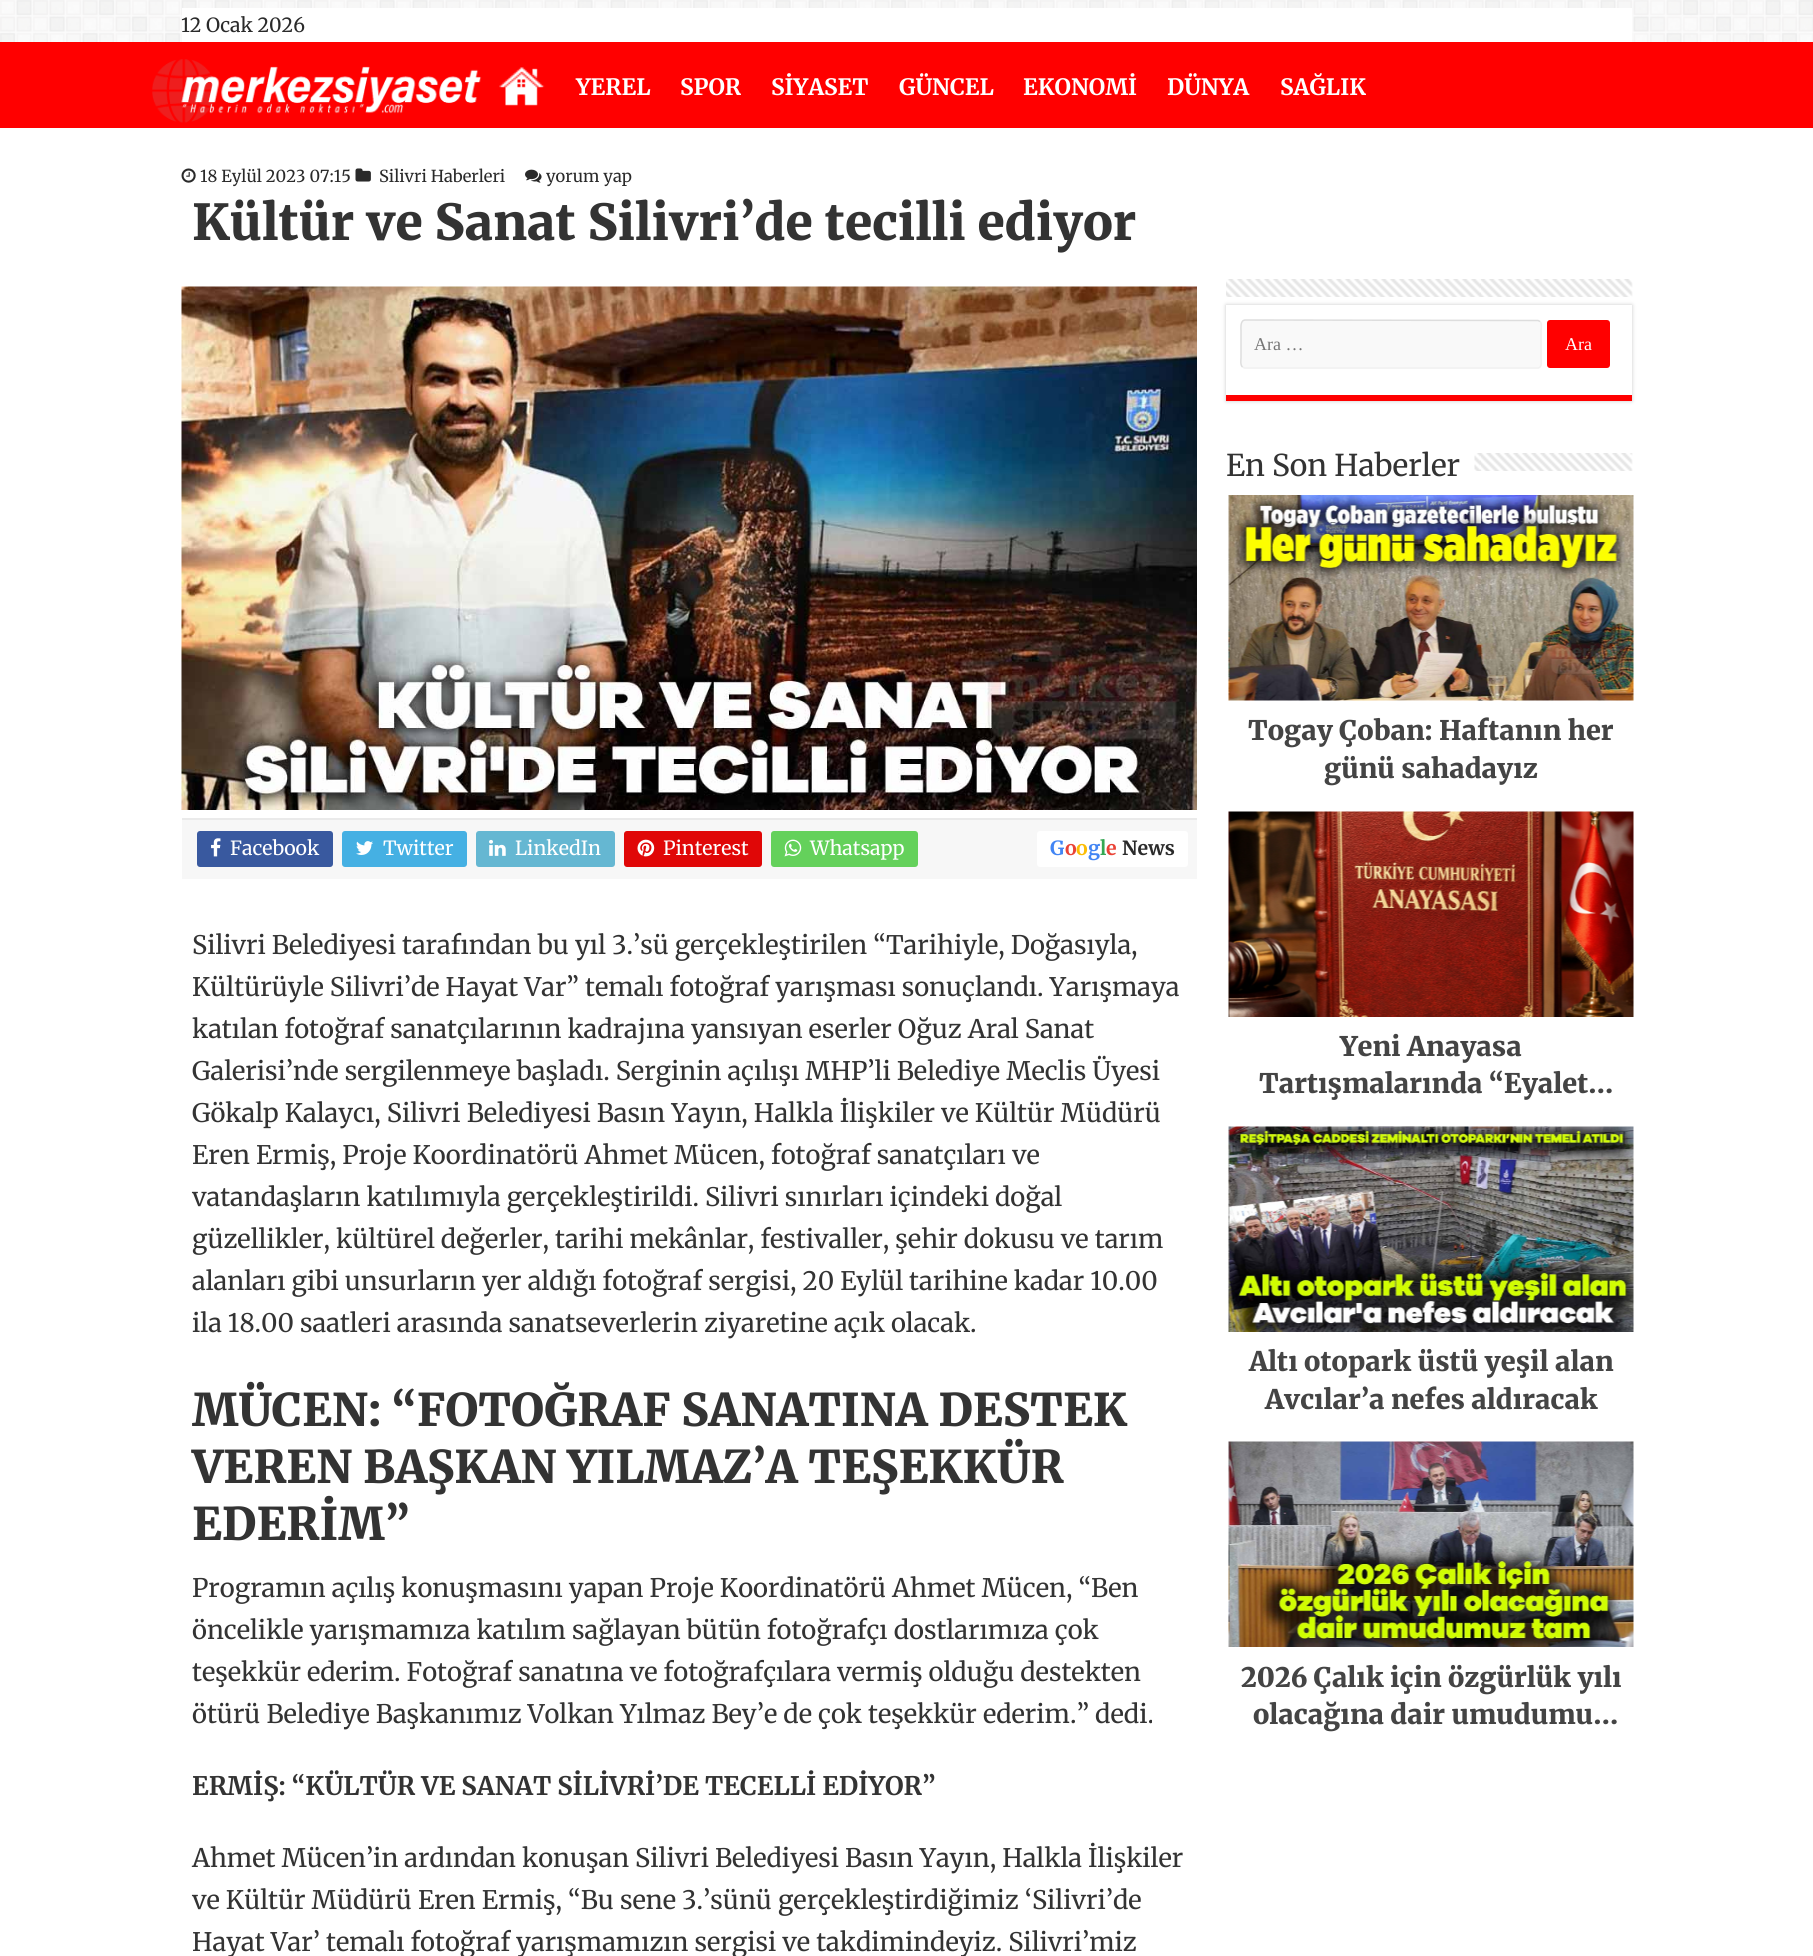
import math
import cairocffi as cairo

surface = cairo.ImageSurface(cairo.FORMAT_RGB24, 1813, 1956)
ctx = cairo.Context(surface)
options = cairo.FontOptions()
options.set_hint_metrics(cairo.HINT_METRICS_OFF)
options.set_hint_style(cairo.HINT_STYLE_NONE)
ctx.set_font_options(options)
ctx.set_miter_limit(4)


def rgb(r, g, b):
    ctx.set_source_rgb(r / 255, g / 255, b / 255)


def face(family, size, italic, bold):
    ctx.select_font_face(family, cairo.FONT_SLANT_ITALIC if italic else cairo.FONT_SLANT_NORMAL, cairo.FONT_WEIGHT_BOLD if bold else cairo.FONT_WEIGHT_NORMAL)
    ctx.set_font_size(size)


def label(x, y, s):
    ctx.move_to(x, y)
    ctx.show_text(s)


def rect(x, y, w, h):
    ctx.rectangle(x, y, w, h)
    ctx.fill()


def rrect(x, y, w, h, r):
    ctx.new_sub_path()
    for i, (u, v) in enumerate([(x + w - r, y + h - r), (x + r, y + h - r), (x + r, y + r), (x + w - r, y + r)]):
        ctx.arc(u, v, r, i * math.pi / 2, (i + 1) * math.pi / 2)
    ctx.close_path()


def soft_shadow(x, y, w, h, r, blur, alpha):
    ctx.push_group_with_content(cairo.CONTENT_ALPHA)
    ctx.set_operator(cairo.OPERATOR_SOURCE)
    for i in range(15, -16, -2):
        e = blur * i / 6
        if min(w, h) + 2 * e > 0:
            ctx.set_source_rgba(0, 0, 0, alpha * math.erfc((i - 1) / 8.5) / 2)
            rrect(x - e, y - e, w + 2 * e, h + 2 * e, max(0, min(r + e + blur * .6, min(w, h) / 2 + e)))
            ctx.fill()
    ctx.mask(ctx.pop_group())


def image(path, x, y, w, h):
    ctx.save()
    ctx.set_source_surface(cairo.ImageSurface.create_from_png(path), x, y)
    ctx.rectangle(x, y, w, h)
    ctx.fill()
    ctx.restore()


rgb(255, 255, 255)
ctx.paint()
image('image0.png', 0, 0, 1813, 42)
rgb(255, 255, 255)
rect(182, 8, 1450, 34)
face('Merriweather', 19.5, 0, 0)
rgb(42, 42, 42)
label(181, 32, '12 Ocak 2026')
rgb(255, 0, 0)
rect(0, 42, 1813, 86)
image('image1.png', 152, 59, 330, 64)
image('image2.png', 499, 67, 46, 39)
face('Merriweather', 22.5, 0, 1)
rgb(255, 255, 255)
label(576, 95, 'YEREL')
label(680, 95, 'SPOR')
label(771, 95, 'SİYASET')
label(899, 95, 'GÜNCEL')
label(1023, 95, 'EKONOMİ')
label(1167, 95, 'DÜNYA')
label(1280, 95, 'SAĞLIK')
image('image3.png', 181, 168, 15, 15)
face('Merriweather', 16.5, 0, 0)
rgb(42, 42, 42)
label(200, 182, '18 Eylül 2023 07:15')
image('image4.png', 355, 168, 16, 14)
label(379, 182, 'Silivri Haberleri')
image('image5.png', 525, 169, 17, 14)
label(546, 182, 'yorum yap')
face('Merriweather Black', 49.5, 0, 0)
rgb(51, 51, 51)
label(192, 240, 'Kültür ve Sanat Silivri’de tecilli ediyor')
image('image6.png', 181, 286, 1016, 524)
rgb(247, 247, 247)
rect(182, 820, 1015, 59)
rgb(234, 234, 234)
rect(182, 818, 1015, 2)
rgb(57, 89, 159)
rrect(197, 831, 136, 36, 3)
ctx.fill()
image('image7.png', 211, 838, 10, 19)
face('Merriweather', 19.5, 0, 0)
rgb(255, 255, 255)
label(230, 855, 'Facebook')
rgb(69, 176, 227)
rrect(342, 831, 125, 36, 3)
ctx.fill()
image('image8.png', 356, 841, 17, 14)
rgb(255, 255, 255)
label(383, 855, 'Twitter')
rgb(101, 183, 210)
rrect(476, 831, 139, 36, 3)
ctx.fill()
image('image9.png', 489, 839, 17, 17)
rgb(255, 255, 255)
label(515, 855, 'LinkedIn')
rgb(224, 7, 7)
rrect(624, 831, 138, 36, 3)
ctx.fill()
image('image10.png', 637, 839, 18, 18)
rgb(255, 255, 255)
label(663, 855, 'Pinterest')
rgb(100, 209, 91)
rrect(771, 831, 147, 36, 3)
ctx.fill()
image('image11.png', 784, 839, 18, 18)
rgb(255, 255, 255)
label(810, 855, 'Whatsapp')
rrect(1037, 831, 151, 36, 3)
ctx.fill()
face('Merriweather', 19.5, 0, 1)
rgb(66, 133, 244)
label(1050, 855, 'G')
rgb(234, 67, 54)
label(1065, 855, 'o')
rgb(251, 189, 5)
label(1076, 855, 'o')
rgb(66, 133, 244)
label(1088, 855, 'g')
rgb(52, 168, 83)
label(1100, 855, 'l')
rgb(234, 67, 54)
label(1106, 855, 'e')
rgb(42, 42, 42)
label(1122, 855, 'News')
face('Merriweather', 25.5, 0, 0)
rgb(51, 51, 51)
label(192, 954, 'Silivri Belediyesi tarafından bu yıl 3.’sü gerçekleştirilen “Tarihiyle, Doğasıyla,')
label(192, 996, 'Kültürüyle Silivri’de Hayat Var” temalı fotoğraf yarışması sonuçlandı. Yarışmaya')
label(192, 1038, 'katılan fotoğraf sanatçılarının kadrajına yansıyan eserler Oğuz Aral Sanat')
label(192, 1080, 'Galerisi’nde sergilenmeye başladı. Serginin açılışı MHP’li Belediye Meclis Üyesi')
label(192, 1122, 'Gökalp Kalaycı, Silivri Belediyesi Basın Yayın, Halkla İlişkiler ve Kültür Müdürü')
label(192, 1164, 'Eren Ermiş, Proje Koordinatörü Ahmet Mücen, fotoğraf sanatçıları ve')
label(192, 1206, 'vatandaşların katılımıyla gerçekleştirildi. Silivri sınırları içindeki doğal')
label(192, 1248, 'güzellikler, kültürel değerler, tarihi mekânlar, festivaller, şehir dokusu ve tarım')
label(192, 1290, 'alanları gibi unsurların yer aldığı fotoğraf sergisi, 20 Eylül tarihine kadar 10.00')
label(192, 1332, 'ila 18.00 saatleri arasında sanatseverlerin ziyaretine açık olacak.')
face('Merriweather Black', 45, 0, 0)
label(192, 1426, 'MÜCEN: “FOTOĞRAF SANATINA DESTEK')
label(192, 1483, 'VEREN BAŞKAN YILMAZ’A TEŞEKKÜR')
label(192, 1540, 'EDERİM”')
face('Merriweather', 25.5, 0, 0)
label(192, 1597, 'Programın açılış konuşmasını yapan Proje Koordinatörü Ahmet Mücen, “Ben')
label(192, 1639, 'öncelikle yarışmamıza katılım sağlayan bütün fotoğrafçı dostlarımıza çok')
label(192, 1681, 'teşekkür ederim. Fotoğraf sanatına ve fotoğrafçılara vermiş olduğu destekten')
label(192, 1723, 'ötürü Belediye Başkanımız Volkan Yılmaz Bey’e de çok teşekkür ederim.” dedi.')
face('Merriweather', 25.5, 0, 1)
label(192, 1795, 'ERMİŞ: “KÜLTÜR VE SANAT SİLİVRİ’DE TECELLİ EDİYOR”')
face('Merriweather', 25.5, 0, 0)
label(192, 1867, 'Ahmet Mücen’in ardından konuşan Silivri Belediyesi Basın Yayın, Halkla İlişkiler')
label(192, 1909, 've Kültür Müdürü Eren Ermiş, “Bu sene 3.’sünü gerçekleştirdiğimiz ‘Silivri’de')
label(192, 1951, 'Hayat Var’ temalı fotoğraf yarışmamızın sergisi ve takdimindeyiz. Silivri’miz')
image('image12.png', 1226, 279, 407, 18)
rgb(202, 202, 202)
soft_shadow(1226, 305, 406, 96, 0, 2, 1)
rgb(255, 255, 255)
rect(1226, 305, 406, 90)
rgb(255, 0, 0)
rect(1226, 395, 406, 6)
rgb(249, 249, 249)
rrect(1241, 320, 301, 49, 5)
ctx.fill()
ctx.new_path()
ctx.move_to(1540, 321.5)
ctx.curve_to(1542.5, 323.5, 1541, 329, 1541, 331)
ctx.line_to(1541, 358)
ctx.curve_to(1541, 360.5, 1542.5, 368, 1537.5, 368)
ctx.line_to(1244.5, 368)
ctx.line_to(1242.5, 367)
rgb(241, 241, 241)
ctx.set_line_width(1.5)
ctx.stroke()
ctx.new_path()
ctx.move_to(1242.5, 367)
ctx.curve_to(1240, 365, 1241, 359.5, 1241, 358)
ctx.line_to(1241, 331)
ctx.curve_to(1241, 328, 1240, 320.5, 1245, 320)
ctx.line_to(1538, 320.5)
ctx.line_to(1540, 321.5)
rgb(221, 221, 221)
ctx.stroke()
face('Liberation Serif', 18, 0, 0)
rgb(117, 117, 117)
label(1254, 350, 'Ara …')
rgb(255, 0, 0)
rrect(1547, 320, 63, 48, 3)
ctx.fill()
rgb(255, 255, 255)
label(1565, 350, 'Ara')
face('Merriweather', 30, 0, 0)
rgb(51, 51, 51)
label(1226, 476, 'En Son Haberler')
image('image13.png', 1474, 453, 159, 18)
image('image14.png', 1228, 495, 406, 206)
face('Merriweather Black', 27, 0, 0)
rgb(68, 68, 68)
label(1248, 740, 'Togay Çoban: Haftanın her')
label(1324, 778, 'günü sahadayız')
image('image15.png', 1228, 811, 406, 206)
label(1340, 1056, 'Yeni Anayasa')
label(1259, 1093, 'Tartışmalarında “Eyalet…')
image('image16.png', 1228, 1126, 406, 206)
label(1249, 1371, 'Altı otopark üstü yeşil alan')
label(1265, 1409, 'Avcılar’a nefes aldıracak')
image('image17.png', 1228, 1441, 406, 206)
label(1241, 1687, '2026 Çalık için özgürlük yılı')
label(1253, 1724, 'olacağına dair umudumu…')
surface.write_to_png('render.png')
